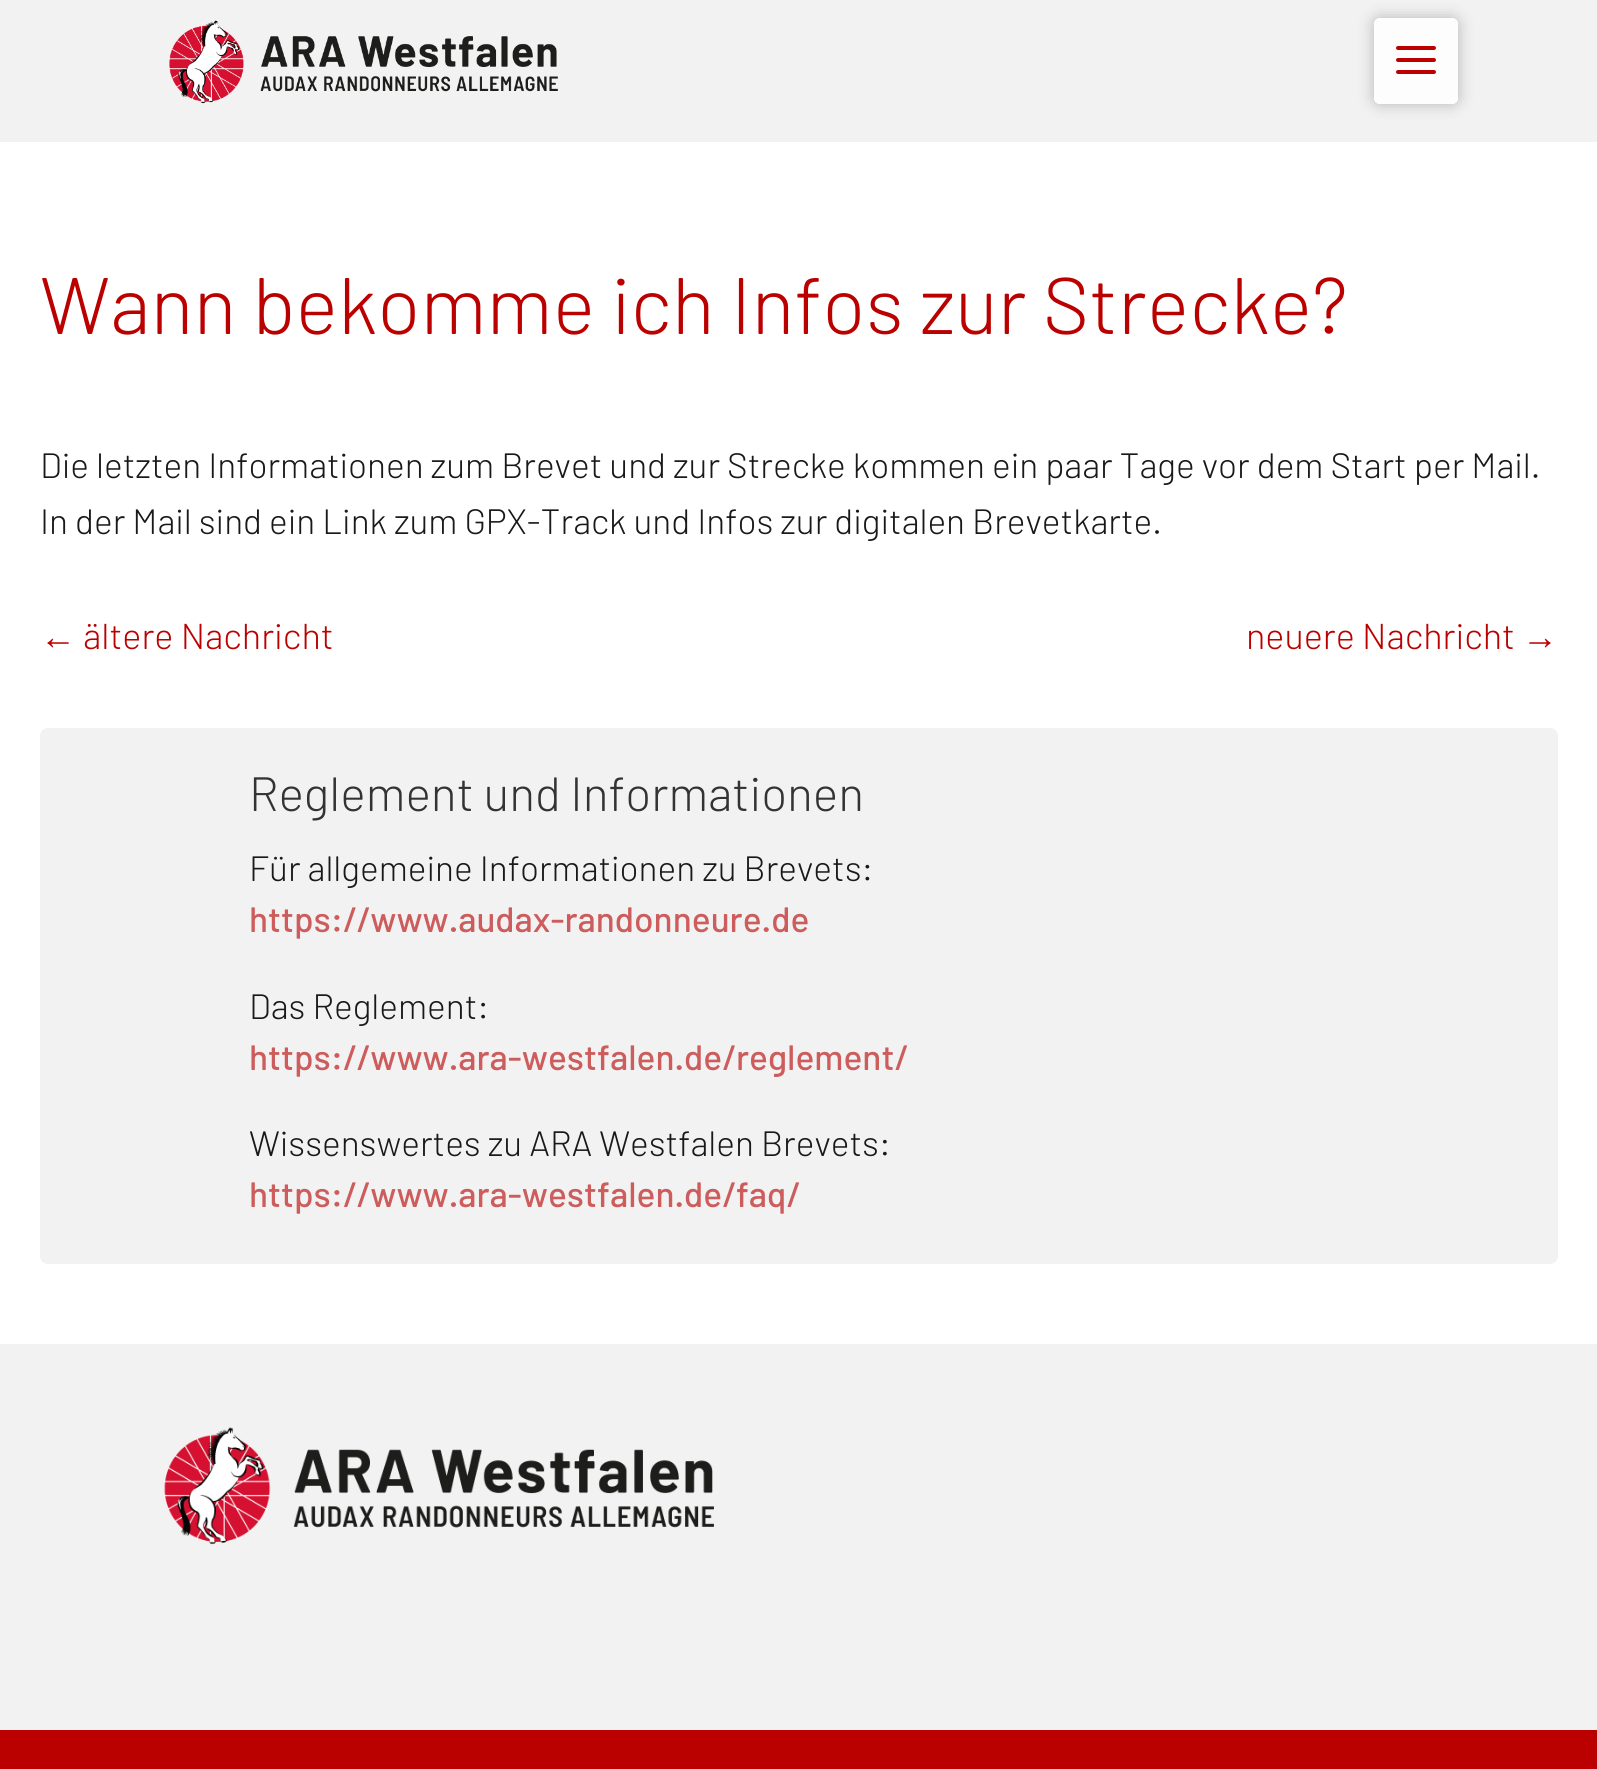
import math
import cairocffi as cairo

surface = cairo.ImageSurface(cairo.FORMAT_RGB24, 1597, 1769)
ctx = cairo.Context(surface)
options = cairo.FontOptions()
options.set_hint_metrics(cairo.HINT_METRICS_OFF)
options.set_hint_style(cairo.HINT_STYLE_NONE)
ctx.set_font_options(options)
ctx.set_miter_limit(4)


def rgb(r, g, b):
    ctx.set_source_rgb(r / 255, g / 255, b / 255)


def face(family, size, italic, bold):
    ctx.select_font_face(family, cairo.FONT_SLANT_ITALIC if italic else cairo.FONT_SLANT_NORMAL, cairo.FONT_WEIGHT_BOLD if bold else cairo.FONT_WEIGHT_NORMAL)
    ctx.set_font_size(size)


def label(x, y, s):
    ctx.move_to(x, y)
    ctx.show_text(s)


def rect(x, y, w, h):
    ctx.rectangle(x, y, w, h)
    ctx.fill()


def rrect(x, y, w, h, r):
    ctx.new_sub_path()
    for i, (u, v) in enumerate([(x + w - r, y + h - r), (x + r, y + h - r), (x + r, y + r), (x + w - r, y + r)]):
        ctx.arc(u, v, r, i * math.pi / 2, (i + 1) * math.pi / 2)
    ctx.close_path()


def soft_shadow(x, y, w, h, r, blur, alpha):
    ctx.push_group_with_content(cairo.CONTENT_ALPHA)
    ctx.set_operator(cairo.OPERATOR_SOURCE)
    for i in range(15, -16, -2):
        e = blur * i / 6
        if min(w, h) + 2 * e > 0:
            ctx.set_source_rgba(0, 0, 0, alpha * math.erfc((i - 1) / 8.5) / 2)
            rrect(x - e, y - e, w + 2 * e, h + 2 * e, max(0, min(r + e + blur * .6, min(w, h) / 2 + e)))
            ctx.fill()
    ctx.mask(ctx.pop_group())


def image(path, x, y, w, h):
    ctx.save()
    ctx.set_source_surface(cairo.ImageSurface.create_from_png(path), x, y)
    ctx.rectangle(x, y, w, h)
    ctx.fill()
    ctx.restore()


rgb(255, 255, 255)
ctx.paint()
rgb(242, 242, 242)
rect(0, 0, 1597, 142)
image('image0.png', 169, 20, 389, 84)
ctx.save()
ctx.set_fill_rule(cairo.FILL_RULE_EVEN_ODD)
ctx.new_path()
ctx.move_to(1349, 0)
ctx.line_to(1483, 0)
ctx.line_to(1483, 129)
ctx.line_to(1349, 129)
ctx.close_path()
ctx.move_to(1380, 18)
ctx.line_to(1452, 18)
ctx.curve_to(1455.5, 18, 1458, 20.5, 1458, 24)
ctx.line_to(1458, 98)
ctx.curve_to(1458, 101.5, 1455.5, 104, 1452, 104)
ctx.line_to(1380, 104)
ctx.curve_to(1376.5, 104, 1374, 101.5, 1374, 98)
ctx.line_to(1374, 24)
ctx.curve_to(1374, 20.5, 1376.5, 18, 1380, 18)
ctx.close_path()
ctx.clip()
rgb(0, 0, 0)
soft_shadow(1374, 18, 84, 86, 6, 8, 0.25)
ctx.restore()
ctx.set_source_rgba(1, 1, 1, 0.85)
rrect(1374, 18, 84, 86, 6)
ctx.fill()
image('image1.png', 1396, 46, 40, 28)
face('Barlow Light', 80, 0, 0)
rgb(187, 0, 0)
label(40, 334, 'Wann bekomme ich Infos zur Strecke?')
face('Barlow Light', 35.2, 0, 0)
rgb(25, 25, 25)
label(40, 478, 'Die letzten Informationen zum Brevet und zur Strecke kommen ein paar Tage vor dem Start per Mail.')
label(40, 534, 'In der Mail sind ein Link zum GPX-Track und Infos zur digitalen Brevetkarte.')
face('Liberation Sans', 36, 0, 0)
rgb(187, 0, 0)
label(40, 649, '←')
face('Barlow Light', 36, 0, 0)
label(83, 649, 'ältere Nachricht')
label(1246, 649, 'neuere Nachricht')
face('Liberation Sans', 36, 0, 0)
label(1522, 649, '→')
rgb(242, 242, 242)
rrect(40, 728, 1518, 536, 8)
ctx.fill()
face('Barlow Light', 48, 0, 0)
rgb(51, 51, 51)
label(249, 811, 'Reglement und Informationen')
face('Barlow Light', 35.2, 0, 0)
rgb(25, 25, 25)
label(249, 881, 'Für allgemeine Informationen zu Brevets:')
face('Barlow Medium', 35.2, 0, 0)
rgb(205, 92, 92)
label(249, 932, 'https://www.audax-randonneure.de')
face('Barlow Light', 35.2, 0, 0)
rgb(25, 25, 25)
label(249, 1019, 'Das Reglement:')
face('Barlow Medium', 35.2, 0, 0)
rgb(205, 92, 92)
label(249, 1070, 'https://www.ara-westfalen.de/reglement/')
face('Barlow Light', 35.2, 0, 0)
rgb(25, 25, 25)
label(249, 1156, 'Wissenswertes zu ARA Westfalen Brevets:')
face('Barlow Medium', 35.2, 0, 0)
rgb(205, 92, 92)
label(249, 1207, 'https://www.ara-westfalen.de/faq/')
rgb(242, 242, 242)
rect(0, 1344, 1597, 386)
image('image2.png', 164, 1427, 550, 118)
rgb(187, 0, 0)
rect(0, 1730, 1597, 39)
surface.write_to_png('render.png')
